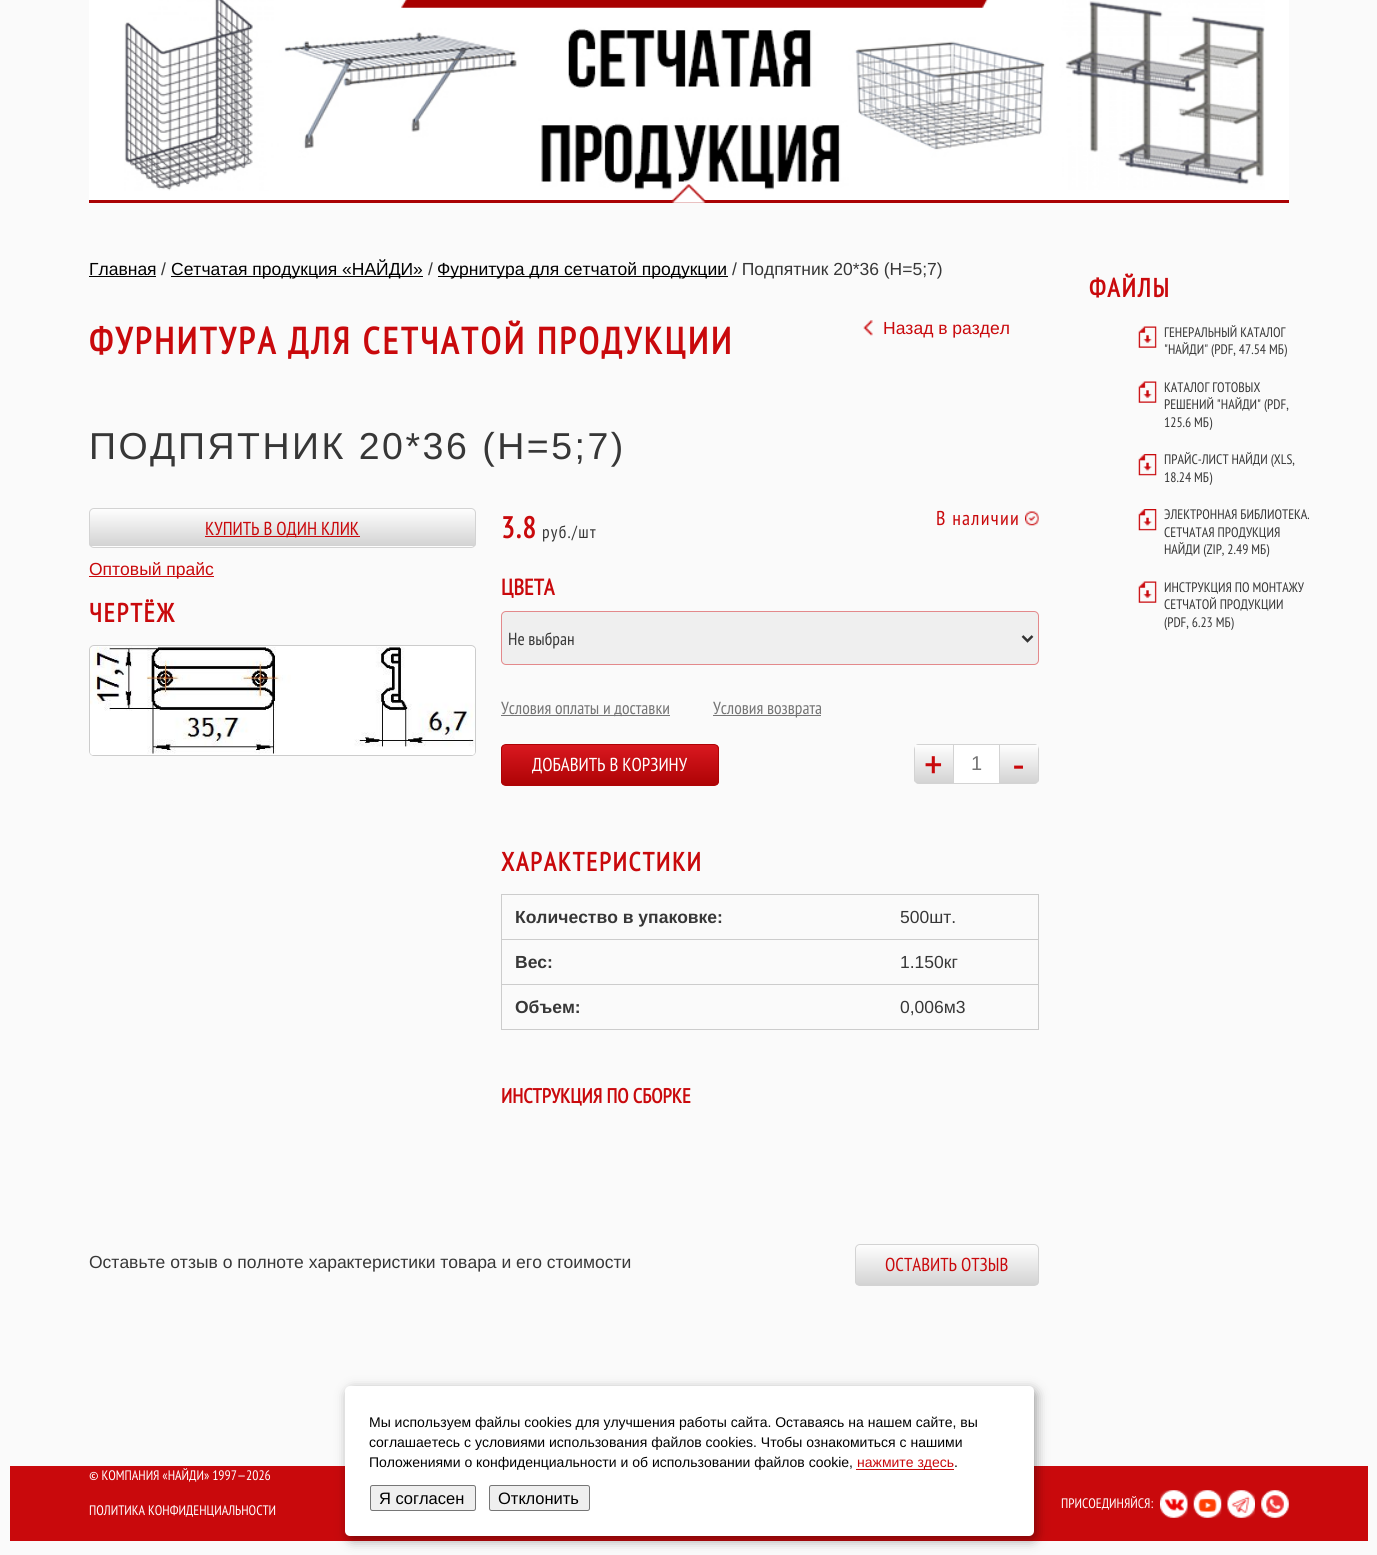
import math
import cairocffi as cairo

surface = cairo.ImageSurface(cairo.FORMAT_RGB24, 1377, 1555)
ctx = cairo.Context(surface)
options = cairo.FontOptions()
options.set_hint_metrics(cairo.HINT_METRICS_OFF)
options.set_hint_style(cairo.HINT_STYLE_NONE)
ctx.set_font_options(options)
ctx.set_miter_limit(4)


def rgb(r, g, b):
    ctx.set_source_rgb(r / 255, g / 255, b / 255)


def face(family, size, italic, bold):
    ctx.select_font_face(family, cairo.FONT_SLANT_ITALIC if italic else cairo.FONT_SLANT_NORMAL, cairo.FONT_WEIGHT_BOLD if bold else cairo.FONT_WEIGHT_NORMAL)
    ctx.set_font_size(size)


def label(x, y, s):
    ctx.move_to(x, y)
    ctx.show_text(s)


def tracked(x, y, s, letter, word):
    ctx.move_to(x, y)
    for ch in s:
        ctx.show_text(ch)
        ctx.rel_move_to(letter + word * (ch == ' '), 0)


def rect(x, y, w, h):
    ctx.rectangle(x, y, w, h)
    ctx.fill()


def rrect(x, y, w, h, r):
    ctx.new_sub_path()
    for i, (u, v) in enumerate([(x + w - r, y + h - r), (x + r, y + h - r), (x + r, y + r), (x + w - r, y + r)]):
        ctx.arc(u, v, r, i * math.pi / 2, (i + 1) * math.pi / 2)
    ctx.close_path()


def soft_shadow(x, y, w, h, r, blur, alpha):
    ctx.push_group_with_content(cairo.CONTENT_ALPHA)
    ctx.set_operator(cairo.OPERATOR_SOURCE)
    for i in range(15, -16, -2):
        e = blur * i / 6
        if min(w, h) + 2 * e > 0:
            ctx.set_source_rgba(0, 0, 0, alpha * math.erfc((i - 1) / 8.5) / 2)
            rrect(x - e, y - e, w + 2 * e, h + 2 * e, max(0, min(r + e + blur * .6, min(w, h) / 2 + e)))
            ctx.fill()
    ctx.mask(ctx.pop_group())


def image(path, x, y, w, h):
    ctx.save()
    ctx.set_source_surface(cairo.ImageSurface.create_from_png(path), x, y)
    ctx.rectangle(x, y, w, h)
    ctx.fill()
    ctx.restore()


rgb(250, 250, 250)
ctx.paint()
rgb(255, 255, 255)
rect(89, 0, 1200, 200)
image('image0.png', 124, 0, 1141, 191)
rgb(170, 3, 4)
rect(89, 200, 1200, 3)
image('image1.png', 671, 184, 35, 19)
face('Liberation Sans', 17.5, 0, 0)
rgb(0, 0, 0)
label(89, 275, 'Главная')
rect(89, 276, 67, 1)
rgb(55, 55, 55)
label(161, 275, '/')
rgb(0, 0, 0)
rect(171, 276, 252, 1)
label(171, 275, 'Сетчатая продукция «НАЙДИ»')
rgb(55, 55, 55)
label(428, 275, '/')
rgb(0, 0, 0)
rect(438, 276, 290, 1)
label(437, 275, 'Фурнитура для сетчатой продукции')
rgb(55, 55, 55)
label(732, 275, '/ Подпятник 20*36 (Н=5;7)')
face('PT Sans Narrow', 37.5, 0, 1)
rgb(201, 9, 12)
tracked(89, 354, 'ФУРНИТУРА ДЛЯ СЕТЧАТОЙ ПРОДУКЦИИ', 2.5, 0)
image('image2.png', 863, 320, 10, 16)
face('Liberation Sans', 17.5, 0, 0)
label(883, 334, 'Назад в раздел')
face('Liberation Sans', 37.5, 0, 0)
rgb(55, 55, 55)
tracked(89, 459, 'ПОДПЯТНИК 20*36 (Н=5;7)', 2.5, 0)
ctx.save()
rrect(89, 508, 387, 40, 5)
ctx.clip()
gradient = cairo.LinearGradient(283, 546, 283, 509)
gradient.add_color_stop_rgba(0, 0.827, 0.827, 0.827, 1)
gradient.add_color_stop_rgba(1, 0.996, 0.996, 0.996, 1)
ctx.set_source(gradient)
rect(89, 509, 387, 37)
gradient = cairo.LinearGradient(283, 584, 283, 546)
gradient.add_color_stop_rgba(0, 0.827, 0.827, 0.827, 1)
gradient.add_color_stop_rgba(1, 0.996, 0.996, 0.996, 1)
ctx.set_source(gradient)
rect(89, 546, 387, 2)
ctx.restore()
rrect(89.5, 508.5, 386, 39, 4.5)
rgb(211, 211, 211)
ctx.set_line_width(1)
ctx.stroke()
rgb(201, 9, 12)
rect(205, 536, 155, 1)
face('PT Sans Narrow', 18.75, 0, 0)
label(205, 535, 'КУПИТЬ В ОДИН КЛИК')
rect(89, 576, 125, 1)
face('Liberation Sans', 17.5, 0, 0)
label(89, 575, 'Оптовый прайс')
face('PT Sans Narrow', 26.25, 0, 1)
tracked(89, 622, 'ЧЕРТЁЖ', 1.75, 0)
rgb(255, 255, 255)
rrect(89.5, 645.5, 386, 110, 4.5)
ctx.fill_preserve()
rgb(204, 204, 204)
ctx.stroke()
image('image3.png', 90, 646, 385, 109)
face('PT Sans Narrow', 30, 0, 1)
rgb(201, 9, 12)
tracked(501, 538, '3.8', 1.25, 0)
face('PT Sans Narrow', 17.5, 0, 0)
rgb(55, 55, 55)
tracked(542, 538, 'руб./шт', 1.25, 0)
image('image4.png', 1025, 511, 14, 15)
face('PT Sans Narrow', 20, 0, 0)
rgb(201, 9, 12)
tracked(936, 525, 'В наличии', 1.25, 0)
face('PT Sans Narrow', 22.5, 0, 1)
label(501, 595, 'ЦВЕТА')
rgb(239, 239, 239)
rrect(501.5, 611.5, 537, 53, 4.5)
ctx.fill_preserve()
rgb(227, 137, 139)
ctx.stroke()
ctx.new_path()
ctx.move_to(1022.5, 636)
ctx.line_to(1027.5, 641)
ctx.line_to(1032.5, 636)
rgb(51, 51, 51)
ctx.set_line_width(2.5)
ctx.stroke()
face('PT Sans Narrow', 17.5, 0, 0)
rgb(55, 55, 55)
label(508, 645, 'Не выбран')
rgb(117, 117, 117)
rect(501, 715, 169, 1)
label(501, 714, 'Условия оплаты и доставки')
rect(713, 715, 108, 1)
label(713, 714, 'Условия возврата')
ctx.save()
rrect(501, 744, 218, 42, 5)
ctx.clip()
gradient = cairo.LinearGradient(610, 785, 610, 745)
gradient.add_color_stop_rgba(0, 0.682, 0.012, 0.02, 1)
gradient.add_color_stop_rgba(1, 0.851, 0.094, 0.122, 1)
ctx.set_source(gradient)
rect(501, 745, 218, 40)
ctx.restore()
rrect(501.5, 744.5, 217, 41, 4.5)
rgb(174, 3, 5)
ctx.set_line_width(1)
ctx.stroke()
face('PT Sans Narrow', 18.75, 0, 0)
rgb(255, 255, 255)
label(532, 771, 'ДОБАВИТЬ В КОРЗИНУ')
ctx.save()
rrect(914, 744, 125, 40, 5)
ctx.clip()
gradient = cairo.LinearGradient(934, 745, 934, 708)
gradient.add_color_stop_rgba(0, 0.827, 0.827, 0.827, 1)
gradient.add_color_stop_rgba(1, 0.996, 0.996, 0.996, 1)
ctx.set_source(gradient)
rect(914, 744, 5, 1)
gradient = cairo.LinearGradient(934, 783, 934, 745)
gradient.add_color_stop_rgba(0, 0.827, 0.827, 0.827, 1)
gradient.add_color_stop_rgba(1, 0.996, 0.996, 0.996, 1)
ctx.set_source(gradient)
rect(914, 745, 39, 38)
ctx.restore()
rgb(211, 211, 211)
ctx.set_fill_rule(cairo.FILL_RULE_EVEN_ODD)
ctx.new_path()
ctx.move_to(914, 749)
ctx.line_to(914, 779)
ctx.curve_to(914, 780, 914, 781, 915, 782)
ctx.line_to(915, 746)
ctx.close_path()
ctx.move_to(919, 744)
ctx.line_to(916, 745)
ctx.line_to(953, 745)
ctx.line_to(953, 783)
ctx.line_to(916, 783)
ctx.curve_to(917, 784, 918, 784, 919, 784)
ctx.line_to(954, 784)
ctx.line_to(954, 744)
ctx.close_path()
ctx.fill()
face('PT Sans Narrow', 45, 0, 0)
rgb(201, 9, 12)
label(924, 780, '+')
rgb(255, 255, 255)
rect(954, 745, 45, 38)
rgb(211, 211, 211)
rect(954, 744, 45, 1)
rect(954, 783, 45, 1)
face('Liberation Sans', 20, 0, 0)
rgb(117, 117, 117)
label(971, 770, '1')
ctx.save()
ctx.set_fill_rule(cairo.FILL_RULE_WINDING)
rrect(914, 744, 125, 40, 5)
ctx.clip()
gradient = cairo.LinearGradient(1019, 745, 1019, 708)
gradient.add_color_stop_rgba(0, 0.827, 0.827, 0.827, 1)
gradient.add_color_stop_rgba(1, 0.996, 0.996, 0.996, 1)
ctx.set_source(gradient)
rect(1034, 744, 5, 1)
gradient = cairo.LinearGradient(1019, 783, 1019, 745)
gradient.add_color_stop_rgba(0, 0.827, 0.827, 0.827, 1)
gradient.add_color_stop_rgba(1, 0.996, 0.996, 0.996, 1)
ctx.set_source(gradient)
rect(1000, 745, 39, 38)
ctx.restore()
rgb(211, 211, 211)
ctx.new_path()
ctx.move_to(999, 744)
ctx.line_to(999, 784)
ctx.line_to(1034, 784)
ctx.curve_to(1035, 784, 1036, 784, 1037, 783)
ctx.line_to(1000, 783)
ctx.line_to(1000, 745)
ctx.line_to(1037, 745)
ctx.line_to(1034, 744)
ctx.close_path()
ctx.move_to(1039, 749)
ctx.line_to(1038, 746)
ctx.line_to(1038, 782)
ctx.curve_to(1039, 781, 1039, 780, 1039, 779)
ctx.close_path()
ctx.fill()
face('PT Sans Narrow', 45, 0, 0)
rgb(201, 9, 12)
label(1012, 780, '-')
face('PT Sans Narrow', 26.25, 0, 1)
tracked(501, 871, 'ХАРАКТЕРИСТИКИ', 1.75, 0)
rgb(204, 204, 204)
rect(501, 894, 538, 1)
rect(501, 939, 538, 1)
rect(501, 984, 538, 1)
rect(1038, 984, 1, 46)
rect(501, 1029, 538, 1)
rect(501, 984, 1, 46)
rect(501, 939, 1, 46)
rect(501, 894, 1, 46)
face('Liberation Sans', 17.5, 0, 1)
rgb(55, 55, 55)
label(515, 923, 'Количество в упаковке:')
rgb(204, 204, 204)
rect(1038, 939, 1, 46)
rect(1038, 894, 1, 46)
face('Liberation Sans', 17.5, 0, 0)
rgb(55, 55, 55)
label(900, 923, '500шт.')
face('Liberation Sans', 17.5, 0, 1)
label(515, 968, 'Вес:')
face('Liberation Sans', 17.5, 0, 0)
label(900, 968, '1.150кг')
face('Liberation Sans', 17.5, 0, 1)
label(515, 1013, 'Объем:')
face('Liberation Sans', 17.5, 0, 0)
label(900, 1013, '0,006м3')
face('PT Sans Narrow', 20.5, 0, 1)
rgb(201, 9, 12)
label(501, 1103, 'ИНСТРУКЦИЯ ПО СБОРКЕ')
face('Liberation Sans', 17.5, 0, 0)
rgb(55, 55, 55)
label(89, 1268, 'Оставьте отзыв о полноте характеристики товара и его стоимости')
ctx.save()
ctx.set_fill_rule(cairo.FILL_RULE_WINDING)
rrect(855, 1244, 184, 42, 5)
ctx.clip()
gradient = cairo.LinearGradient(947, 1285, 947, 1245)
gradient.add_color_stop_rgba(0, 0.827, 0.827, 0.827, 1)
gradient.add_color_stop_rgba(1, 0.996, 0.996, 0.996, 1)
ctx.set_source(gradient)
rect(855, 1245, 184, 40)
ctx.restore()
rrect(855.5, 1244.5, 183, 41, 4.5)
rgb(211, 211, 211)
ctx.stroke()
face('PT Sans Narrow', 18.75, 0, 0)
rgb(201, 9, 12)
label(885, 1271, 'ОСТАВИТЬ ОТЗЫВ')
face('PT Sans Narrow', 26.25, 0, 1)
tracked(1089, 297, 'ФАЙЛЫ', 1.75, 0)
image('image5.png', 1138, 326, 19, 22)
face('PT Sans Narrow', 13.75, 0, 0)
rgb(55, 55, 55)
label(1164, 337, 'ГЕНЕРАЛЬНЫЙ КАТАЛОГ')
label(1164, 354, '"НАЙДИ" (PDF, 47.54 МБ)')
image('image5.png', 1138, 381, 19, 22)
label(1164, 392, 'КАТАЛОГ ГОТОВЫХ')
label(1164, 409, 'РЕШЕНИЙ "НАЙДИ" (PDF,')
label(1164, 427, '125.6 МБ)')
image('image6.png', 1138, 454, 19, 22)
label(1164, 464, 'ПРАЙС-ЛИСТ НАЙДИ (XLS,')
label(1164, 482, '18.24 МБ)')
image('image6.png', 1138, 509, 19, 22)
label(1164, 519, 'ЭЛЕКТРОННАЯ БИБЛИОТЕКА.')
label(1164, 537, 'СЕТЧАТАЯ ПРОДУКЦИЯ')
label(1164, 554, 'НАЙДИ (ZIP, 2.49 МБ)')
image('image5.png', 1138, 581, 19, 22)
label(1164, 592, 'ИНСТРУКЦИЯ ПО МОНТАЖУ')
label(1164, 609, 'СЕТЧАТОЙ ПРОДУКЦИИ')
label(1164, 627, '(PDF, 6.23 МБ)')
rgb(201, 9, 12)
rect(10, 1466, 1358, 75)
rgb(0, 0, 0)
soft_shadow(348, 1390, 688, 150, 5, 6, 0.4)
rgb(255, 255, 255)
rrect(345, 1386, 689, 150, 5)
ctx.fill()
face('Liberation Sans', 14, 0, 0)
rgb(0, 0, 0)
label(369, 1427, 'Мы используем файлы cookies для улучшения работы сайта. Оставаясь на нашем сайте, вы')
label(369, 1447, 'соглашаетесь с условиями использования файлов cookies. Чтобы ознакомиться с нашими')
label(369, 1467, 'Положениями о конфиденциальности и об использовании файлов cookie,')
rgb(201, 9, 12)
rect(856, 1469, 98, 1)
label(857, 1467, 'нажмите здесь')
rgb(0, 0, 0)
label(954, 1467, '.')
rgb(239, 239, 239)
rrect(370.5, 1485.5, 105, 25, 2)
ctx.fill_preserve()
rgb(118, 118, 118)
ctx.stroke()
face('Liberation Sans', 16.5, 0, 0)
rgb(0, 0, 0)
label(379, 1504, 'Я согласен')
rgb(239, 239, 239)
rrect(489.5, 1485.5, 100, 25, 2)
ctx.fill_preserve()
rgb(118, 118, 118)
ctx.stroke()
rgb(0, 0, 0)
label(498, 1504, 'Отклонить')
face('PT Sans Narrow', 13.75, 0, 0)
rgb(255, 255, 255)
label(89, 1480, '© КОМПАНИЯ «НАЙДИ» 1997—2026')
label(89, 1515, 'ПОЛИТИКА КОНФИДЕНЦИАЛЬНОСТИ')
label(1061, 1508, 'ПРИСОЕДИНЯЙСЯ:')
image('image7.png', 1160, 1490, 28, 28)
image('image8.png', 1193, 1490, 29, 28)
image('image9.png', 1227, 1490, 28, 28)
image('image10.png', 1261, 1490, 28, 28)
surface.write_to_png('render.png')
